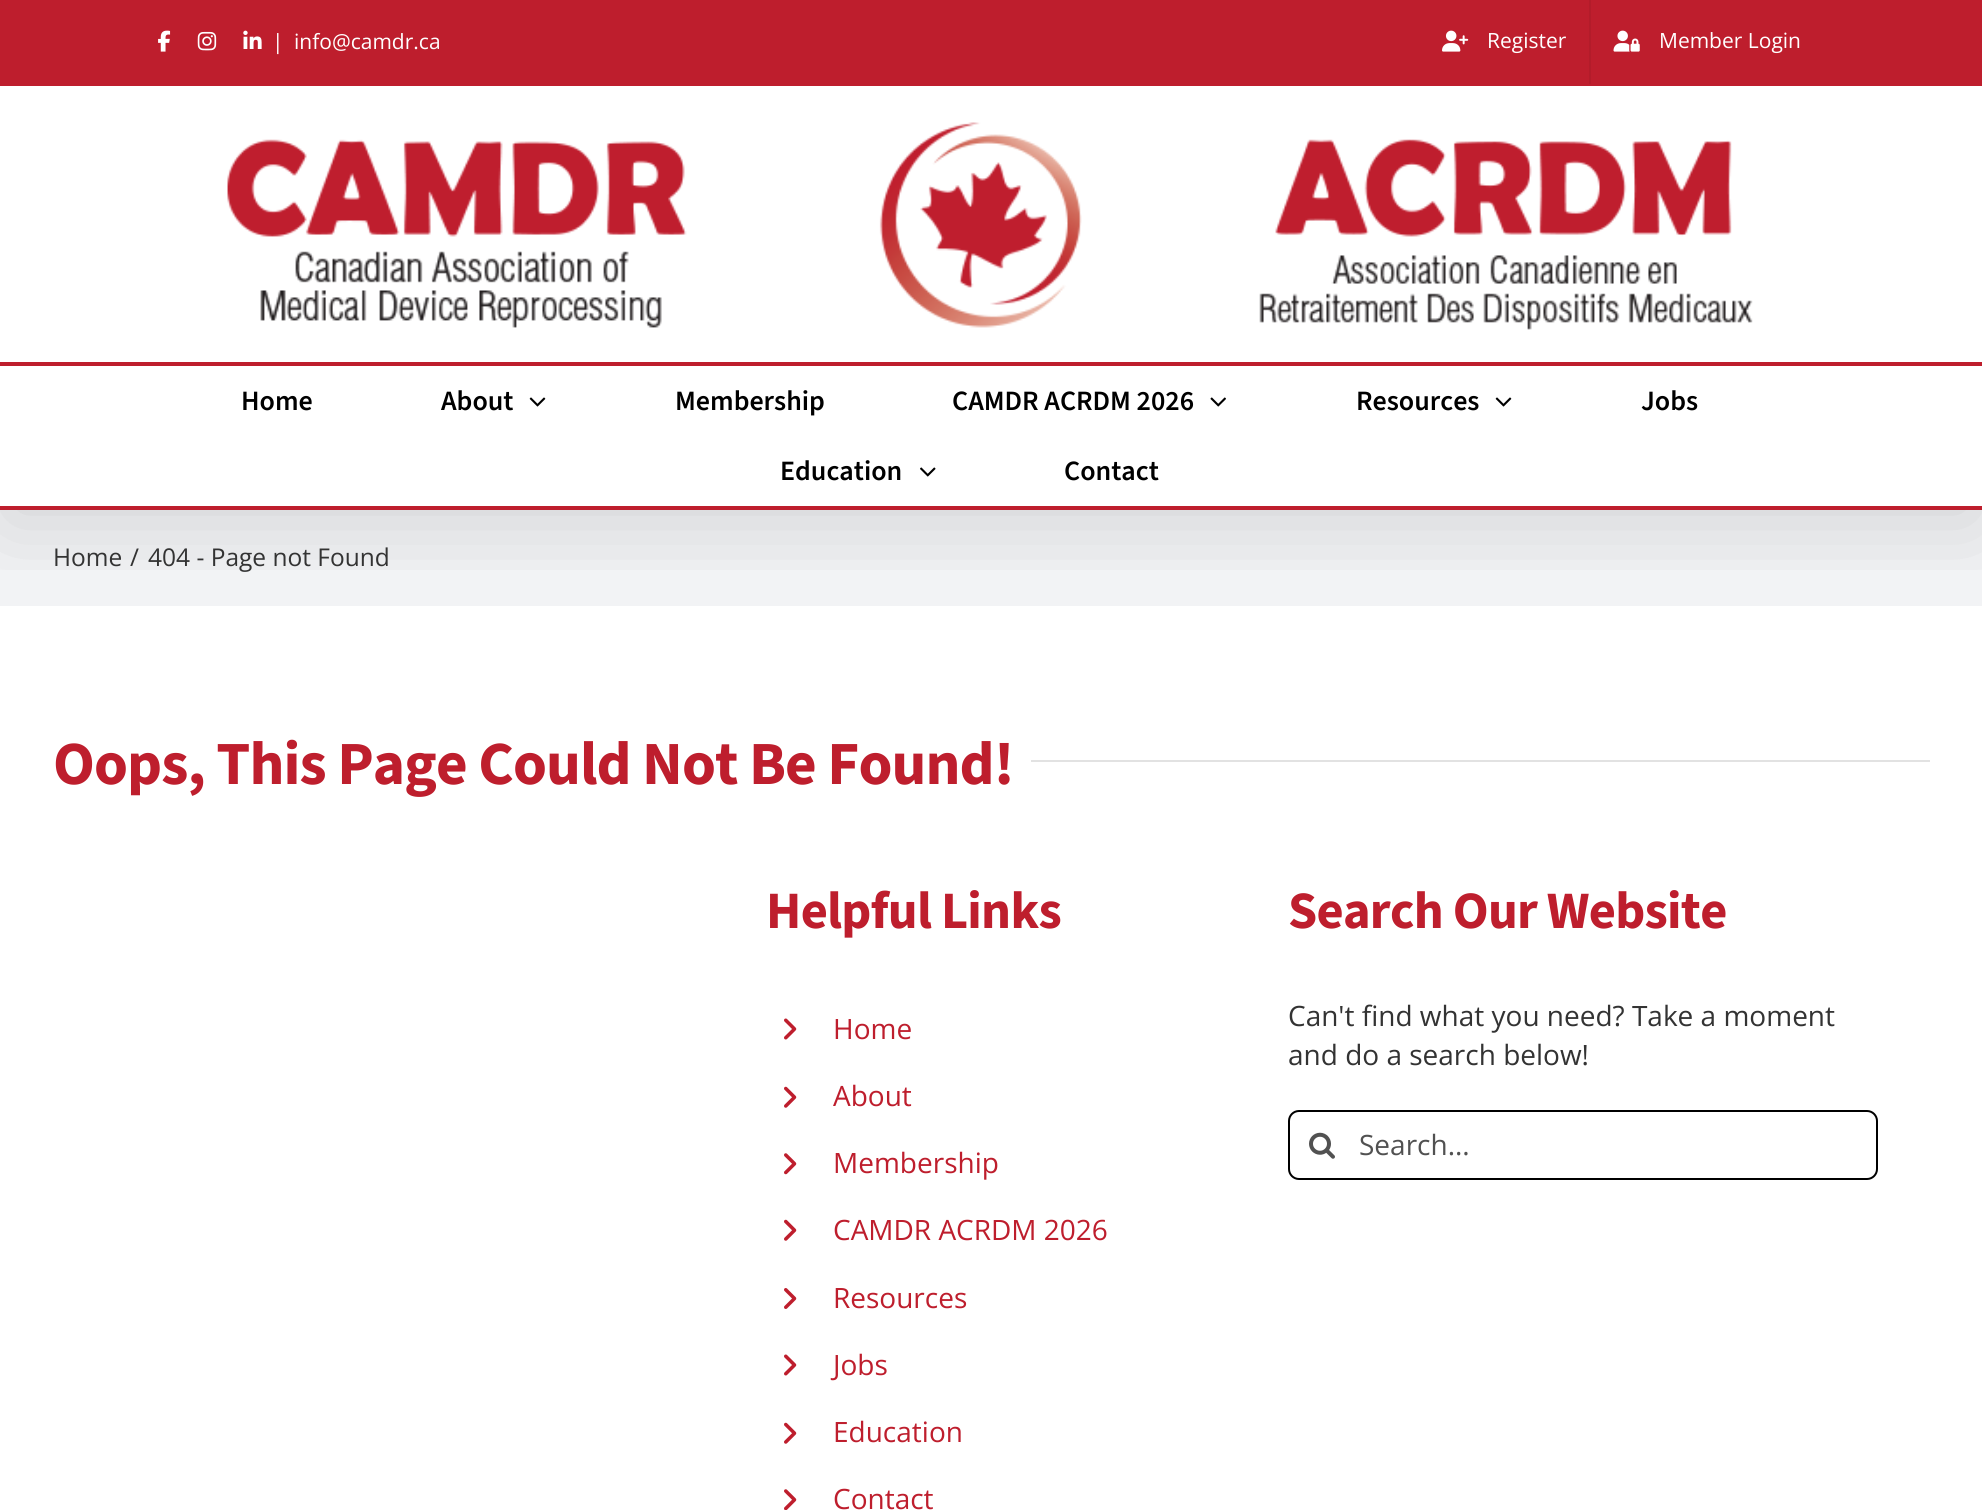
import math
import cairocffi as cairo

surface = cairo.ImageSurface(cairo.FORMAT_RGB24, 1982, 1510)
ctx = cairo.Context(surface)
options = cairo.FontOptions()
options.set_hint_metrics(cairo.HINT_METRICS_OFF)
options.set_hint_style(cairo.HINT_STYLE_NONE)
ctx.set_font_options(options)
ctx.set_miter_limit(4)


def rgb(r, g, b):
    ctx.set_source_rgb(r / 255, g / 255, b / 255)


def face(family, size, italic, bold):
    ctx.select_font_face(family, cairo.FONT_SLANT_ITALIC if italic else cairo.FONT_SLANT_NORMAL, cairo.FONT_WEIGHT_BOLD if bold else cairo.FONT_WEIGHT_NORMAL)
    ctx.set_font_size(size)


def label(x, y, s):
    ctx.move_to(x, y)
    ctx.show_text(s)


def tracked(x, y, s, letter, word):
    ctx.move_to(x, y)
    for ch in s:
        ctx.show_text(ch)
        ctx.rel_move_to(letter + word * (ch == ' '), 0)


def rect(x, y, w, h):
    ctx.rectangle(x, y, w, h)
    ctx.fill()


def rrect(x, y, w, h, r):
    ctx.new_sub_path()
    for i, (u, v) in enumerate([(x + w - r, y + h - r), (x + r, y + h - r), (x + r, y + r), (x + w - r, y + r)]):
        ctx.arc(u, v, r, i * math.pi / 2, (i + 1) * math.pi / 2)
    ctx.close_path()


def soft_shadow(x, y, w, h, r, blur, alpha):
    ctx.push_group_with_content(cairo.CONTENT_ALPHA)
    ctx.set_operator(cairo.OPERATOR_SOURCE)
    for i in range(15, -16, -2):
        e = blur * i / 6
        if min(w, h) + 2 * e > 0:
            ctx.set_source_rgba(0, 0, 0, alpha * math.erfc((i - 1) / 8.5) / 2)
            rrect(x - e, y - e, w + 2 * e, h + 2 * e, max(0, min(r + e + blur * .6, min(w, h) / 2 + e)))
            ctx.fill()
    ctx.mask(ctx.pop_group())


def image(path, x, y, w, h):
    ctx.save()
    ctx.set_source_surface(cairo.ImageSurface.create_from_png(path), x, y)
    ctx.rectangle(x, y, w, h)
    ctx.fill()
    ctx.restore()


rgb(255, 255, 255)
ctx.paint()
rgb(242, 243, 245)
rect(0, 510, 1982, 96)
ctx.save()
ctx.rectangle(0, 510, 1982, 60)
ctx.clip()
rgb(0, 0, 0)
soft_shadow(4, 21, 1975, 502, 0, 44, 0.14)
ctx.restore()
rgb(190, 30, 45)
rect(0, 0, 1982, 86)
image('image0.png', 158, 30, 13, 22)
image('image1.png', 197, 31, 20, 20)
image('image2.png', 243, 30, 19, 19)
face('Open Sans', 21, 0, 0)
rgb(255, 255, 255)
label(272, 49, '|')
label(294, 49, 'info@camdr.ca')
image('image3.png', 1442, 30, 27, 22)
label(1487, 48, 'Register')
rgb(179, 28, 42)
rect(1589, 0, 2, 84)
image('image4.png', 1613, 30, 27, 22)
rgb(255, 255, 255)
label(1659, 48, 'Member Login')
rgb(190, 30, 45)
rect(0, 362, 1982, 4)
image('image5.png', 227, 122, 1526, 208)
rect(0, 506, 1982, 4)
face('Source Sans 3 SemiBold', 28, 0, 0)
rgb(0, 0, 0)
label(241, 410, 'Home')
label(441, 410, 'About')
image('image6.png', 529, 397, 17, 10)
label(675, 410, 'Membership')
label(952, 410, 'CAMDR ACRDM 2026')
image('image7.png', 1210, 397, 16, 10)
label(1356, 410, 'Resources')
image('image6.png', 1495, 397, 17, 10)
label(1641, 410, 'Jobs')
label(780, 480, 'Education')
image('image8.png', 920, 467, 16, 10)
label(1064, 480, 'Contact')
face('Open Sans', 24.5, 0, 0)
rgb(51, 51, 51)
label(53, 566, 'Home')
label(130, 566, '/')
label(148, 566, '404 - Page not Found')
face('Source Sans 3', 61.25, 0, 1)
rgb(190, 30, 45)
tracked(53, 784, 'Oops, This Page Could Not Be Found!', -0.9, 0)
rgb(226, 226, 226)
rect(1031, 760, 899, 2)
face('Source Sans 3', 52.5, 0, 1)
rgb(190, 30, 45)
tracked(766, 928, 'Helpful Links', -0.75, 0)
image('image9.png', 784, 1018, 13, 22)
face('Open Sans', 28, 0, 0)
label(833, 1039, 'Home')
image('image10.png', 784, 1086, 13, 22)
label(833, 1106, 'About')
image('image11.png', 784, 1153, 13, 22)
label(833, 1173, 'Membership')
image('image10.png', 784, 1219, 13, 22)
label(833, 1240, 'CAMDR ACRDM 2026')
image('image12.png', 784, 1288, 13, 21)
label(833, 1308, 'Resources')
image('image9.png', 784, 1354, 13, 22)
label(833, 1375, 'Jobs')
image('image10.png', 784, 1422, 13, 22)
label(833, 1442, 'Education')
image('image13.png', 784, 1489, 13, 21)
label(833, 1509, 'Contact')
face('Source Sans 3', 52.5, 0, 1)
tracked(1288, 928, 'Search Our Website', -0.75, 0)
face('Open Sans', 28, 0, 0)
rgb(51, 51, 51)
label(1288, 1026, 'Can\'t find what you need? Take a moment')
label(1288, 1065, 'and do a search below!')
rrect(1289, 1111, 588, 68, 10)
rgb(0, 0, 0)
ctx.stroke()
image('image14.png', 1309, 1132, 26, 27)
rgb(81, 81, 81)
label(1359, 1155, 'Search...')
surface.write_to_png('render.png')
